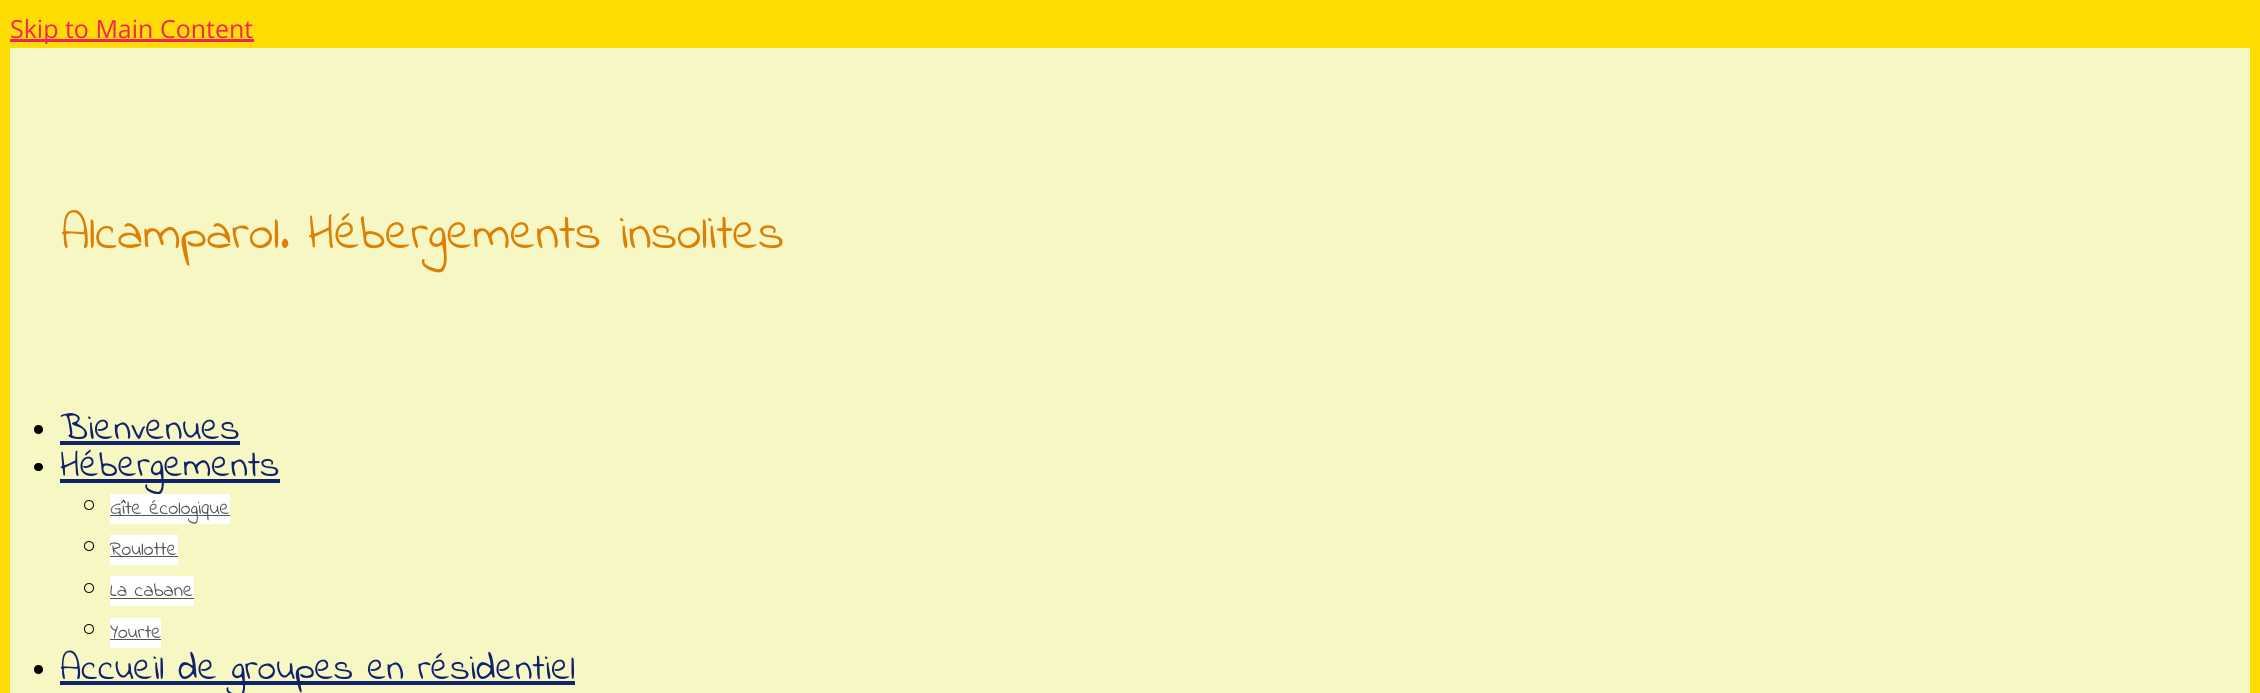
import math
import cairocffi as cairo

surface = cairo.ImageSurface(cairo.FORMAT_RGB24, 2260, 693)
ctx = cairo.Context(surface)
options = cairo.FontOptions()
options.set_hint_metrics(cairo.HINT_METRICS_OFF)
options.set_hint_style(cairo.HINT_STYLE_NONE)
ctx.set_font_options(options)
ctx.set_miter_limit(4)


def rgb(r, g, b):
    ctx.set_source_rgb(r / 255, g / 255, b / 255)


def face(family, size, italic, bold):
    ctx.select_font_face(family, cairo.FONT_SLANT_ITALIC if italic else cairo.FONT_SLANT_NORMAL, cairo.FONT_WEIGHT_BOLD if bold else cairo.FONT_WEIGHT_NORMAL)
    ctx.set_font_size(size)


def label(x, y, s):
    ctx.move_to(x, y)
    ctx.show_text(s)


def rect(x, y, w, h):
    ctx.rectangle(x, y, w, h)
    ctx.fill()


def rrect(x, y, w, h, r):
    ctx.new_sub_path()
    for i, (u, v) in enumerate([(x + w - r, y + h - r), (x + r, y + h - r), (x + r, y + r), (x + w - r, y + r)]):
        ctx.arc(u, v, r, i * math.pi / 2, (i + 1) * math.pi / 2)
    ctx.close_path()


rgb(253, 221, 3)
ctx.paint()
rgb(247, 34, 91)
rect(10, 39, 244, 3)
face('Open Sans', 25, 0, 0)
label(10, 38, 'Skip to Main Content')
rgb(247, 247, 195)
rect(10, 48, 2240, 645)
face('Indie Flower', 50, 0, 0)
rgb(221, 127, 4)
label(61, 248, 'Alcamparol. Hébergements insolites')
rgb(0, 0, 0)
ctx.new_path()
ctx.arc(38.5, 429.5, 4.5, 0, 2 * math.pi)
ctx.fill()
face('Indie Flower', 37.5, 0, 0)
rgb(17, 34, 109)
label(60, 439, 'Bienvenues')
rect(60, 441, 180, 4)
rgb(0, 0, 0)
rrect(34, 463, 9, 8, 4)
ctx.fill()
rgb(17, 34, 109)
rect(60, 479, 220, 4)
label(60, 476, 'Hébergements')
ctx.new_path()
ctx.arc(89, 505, 4.5, 0, 2 * math.pi)
rgb(0, 0, 0)
ctx.set_line_width(1)
ctx.stroke()
rgb(255, 255, 255)
rect(110, 494, 120, 30)
rgb(85, 85, 85)
rect(110, 515, 120, 1)
face('Indie Flower', 20, 0, 0)
label(110, 514, 'Gîte écologique')
ctx.new_path()
ctx.arc(89, 546, 4.5, 0, 2 * math.pi)
rgb(0, 0, 0)
ctx.stroke()
rgb(255, 255, 255)
rect(110, 535, 68, 30)
rgb(85, 85, 85)
label(110, 555, 'Roulotte')
rect(110, 556, 68, 1)
ctx.new_path()
ctx.arc(89, 588, 4.5, 0, 2 * math.pi)
rgb(0, 0, 0)
ctx.stroke()
rgb(255, 255, 255)
rect(110, 576, 84, 30)
rgb(85, 85, 85)
label(110, 596, 'La cabane')
rect(110, 598, 84, 1)
ctx.new_path()
ctx.arc(89, 629, 4.5, 0, 2 * math.pi)
rgb(0, 0, 0)
ctx.stroke()
rgb(255, 255, 255)
rect(110, 618, 51, 30)
rgb(85, 85, 85)
label(110, 638, 'Yourte')
rect(110, 639, 51, 1)
rgb(0, 0, 0)
ctx.new_path()
ctx.arc(38.5, 669.5, 4.5, 0, 2 * math.pi)
ctx.fill()
rgb(17, 34, 109)
rect(60, 681, 515, 4)
face('Indie Flower', 37.5, 0, 0)
label(60, 679, 'Accueil de groupes en résidentiel')
surface.write_to_png('render.png')
